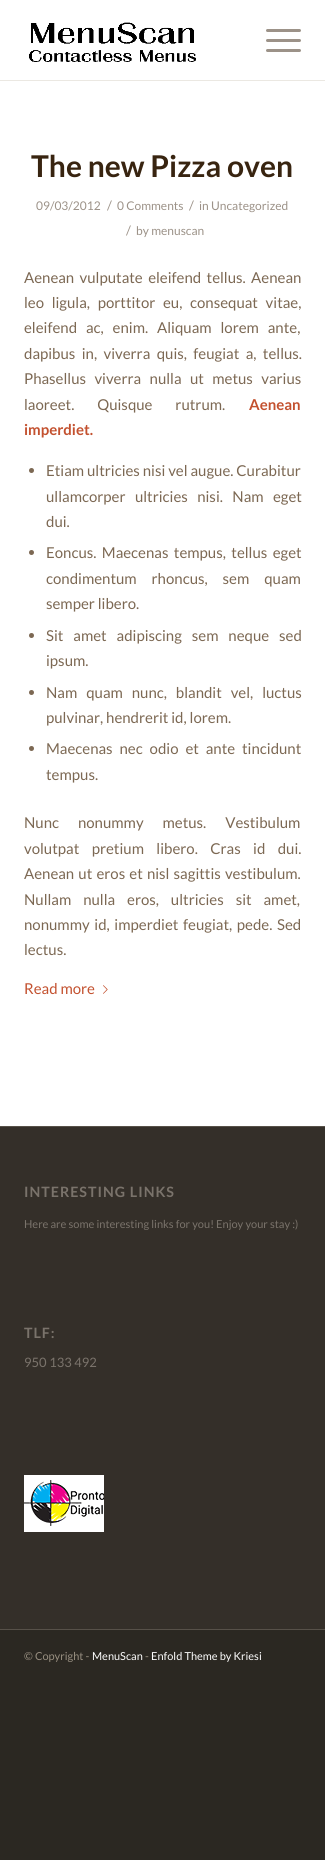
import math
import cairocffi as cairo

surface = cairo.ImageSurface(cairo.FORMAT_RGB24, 325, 1860)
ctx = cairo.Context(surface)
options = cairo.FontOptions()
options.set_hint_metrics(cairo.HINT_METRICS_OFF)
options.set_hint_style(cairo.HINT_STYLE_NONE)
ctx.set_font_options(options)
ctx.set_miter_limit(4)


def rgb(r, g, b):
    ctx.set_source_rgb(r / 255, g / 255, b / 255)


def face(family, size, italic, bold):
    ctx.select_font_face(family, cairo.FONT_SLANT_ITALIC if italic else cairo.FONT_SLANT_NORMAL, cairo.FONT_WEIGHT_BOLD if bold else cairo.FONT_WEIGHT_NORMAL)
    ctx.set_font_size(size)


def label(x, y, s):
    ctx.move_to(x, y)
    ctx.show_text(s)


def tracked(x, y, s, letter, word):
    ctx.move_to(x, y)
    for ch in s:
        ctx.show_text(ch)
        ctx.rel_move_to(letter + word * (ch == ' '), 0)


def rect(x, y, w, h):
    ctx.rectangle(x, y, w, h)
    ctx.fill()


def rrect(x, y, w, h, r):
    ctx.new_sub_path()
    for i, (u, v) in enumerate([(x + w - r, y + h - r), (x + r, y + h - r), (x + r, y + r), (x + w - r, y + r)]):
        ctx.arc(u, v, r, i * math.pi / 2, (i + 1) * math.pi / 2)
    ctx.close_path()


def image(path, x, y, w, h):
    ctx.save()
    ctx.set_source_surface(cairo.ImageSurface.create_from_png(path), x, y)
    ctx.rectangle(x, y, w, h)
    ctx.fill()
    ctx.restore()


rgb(43, 40, 34)
ctx.paint()
rgb(255, 255, 255)
rect(0, 0, 325, 80)
rgb(235, 232, 226)
rect(0, 80, 325, 1)
image('image0.png', 29, 22, 167, 40)
rgb(156, 146, 136)
rrect(266, 39, 35, 3, 1.5)
ctx.fill()
rrect(266, 29, 35, 3, 1.5)
ctx.fill()
rrect(266, 49, 35, 3, 1.5)
ctx.fill()
rgb(255, 255, 255)
rect(0, 81, 325, 1045)
face('Lato', 30, 0, 1)
rgb(56, 36, 16)
label(31, 177, 'The new Pizza oven')
face('Lato', 12, 0, 0)
rgb(156, 146, 136)
label(36, 210, '09/03/2012')
face('Lato', 13, 0, 0)
label(107, 210, '/')
face('Lato', 12, 0, 0)
label(117, 210, '0 Comments')
face('Lato', 13, 0, 0)
label(189, 210, '/')
face('Lato', 12, 0, 0)
label(199, 210, 'in Uncategorized')
face('Lato', 13, 0, 0)
label(126, 235, '/')
face('Lato', 12, 0, 0)
label(136, 235, 'by menuscan')
face('Lato', 15, 0, 0)
rgb(124, 104, 83)
tracked(24, 283, 'Aenean vulputate eleifend tellus. Aenean', 0, 2.5)
tracked(24, 308, 'leo ligula, porttitor eu, consequat vitae,', 0, 4.75)
tracked(24, 333, 'eleifend ac, enim. Aliquam lorem ante,', 0, 6)
tracked(24, 359, 'dapibus in, viverra quis, feugiat a, tellus.', 0, 3.5)
tracked(24, 384, 'Phasellus viverra nulla ut metus varius', 0, 5.5)
tracked(24, 410, 'laoreet. Quisque rutrum.', 0, 20)
face('Lato', 15, 0, 1)
rgb(195, 81, 47)
label(249, 410, 'Aenean')
label(24, 435, 'imperdiet.')
rgb(124, 104, 83)
ctx.new_path()
ctx.arc(31.5, 470.5, 2.5, 0, 2 * math.pi)
ctx.fill()
face('Lato', 15, 0, 0)
label(46, 476, 'Etiam ultricies nisi vel augue. Curabitur')
tracked(46, 502, 'ullamcorper ultricies nisi. Nam eget', 0, 6.5)
label(46, 527, 'dui.')
ctx.new_path()
ctx.arc(31.5, 552.5, 2.5, 0, 2 * math.pi)
ctx.fill()
tracked(46, 558, 'Eoncus. Maecenas tempus, tellus eget', 0, 2.5)
tracked(46, 584, 'condimentum rhoncus, sem quam', 0, 12)
label(46, 609, 'semper libero.')
ctx.new_path()
ctx.arc(31.5, 635.5, 2.5, 0, 2 * math.pi)
ctx.fill()
tracked(46, 641, 'Sit amet adipiscing sem neque sed', 0, 7)
label(46, 666, 'ipsum.')
ctx.new_path()
ctx.arc(31.5, 692.5, 2.5, 0, 2 * math.pi)
ctx.fill()
tracked(46, 698, 'Nam quam nunc, blandit vel, luctus', 0, 6)
label(46, 723, 'pulvinar, hendrerit id, lorem.')
ctx.new_path()
ctx.arc(31.5, 748.5, 2.5, 0, 2 * math.pi)
ctx.fill()
tracked(46, 754, 'Maecenas nec odio et ante tincidunt', 0, 4)
label(46, 780, 'tempus.')
tracked(24, 828, 'Nunc nonummy metus. Vestibulum', 0, 16)
tracked(24, 854, 'volutpat pretium libero. Cras id dui.', 0, 9.5)
tracked(24, 879, 'Aenean ut eros et nisl sagittis vestibulum.', 0, 1.25)
tracked(24, 905, 'Nullam nulla eros, ultricies sit amet,', 0, 9)
tracked(24, 930, 'nonummy id, imperdiet feugiat, pede. Sed', 0, 1.75)
label(24, 955, 'lectus.')
rgb(195, 81, 47)
label(24, 994, 'Read more')
image('image1.png', 103, 985, 5, 9)
rgb(52, 47, 41)
rect(0, 1127, 325, 502)
rgb(87, 81, 73)
rect(0, 1126, 325, 1)
face('Lato', 14.25, 0, 1)
rgb(122, 115, 107)
tracked(24, 1197, 'INTERESTING LINKS', 1, 0)
face('Lato', 11.05, 0, 0)
label(24, 1228, 'Here are some interesting links for you! Enjoy your stay :)')
face('Lato', 14.25, 0, 1)
tracked(24, 1338, 'TLF:', 1, 0)
face('Lato', 13, 0, 0)
label(24, 1367, '950 133 492')
image('image2.png', 24, 1475, 80, 57)
rgb(87, 81, 73)
rect(0, 1629, 325, 1)
face('Lato', 11, 0, 0)
rgb(152, 143, 129)
label(24, 1660, '© Copyright -')
rgb(255, 255, 255)
label(92, 1660, 'MenuScan')
rgb(152, 143, 129)
label(145, 1660, '-')
rgb(255, 255, 255)
label(151, 1660, 'Enfold Theme by Kriesi')
surface.write_to_png('render.png')
